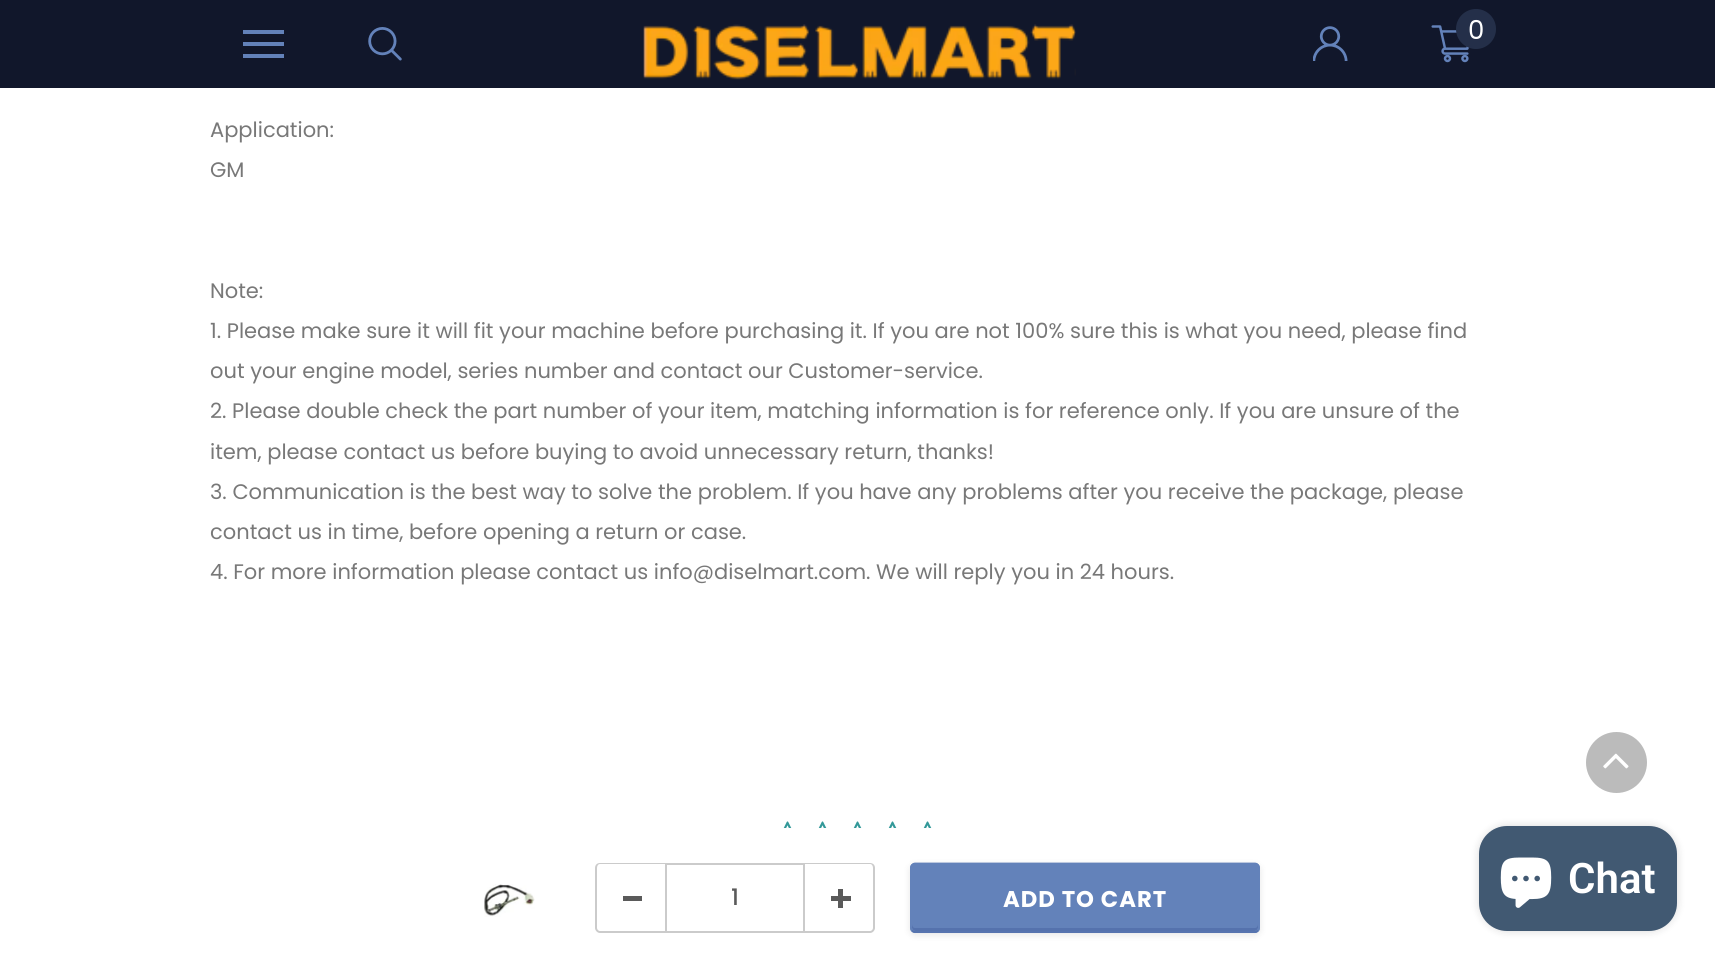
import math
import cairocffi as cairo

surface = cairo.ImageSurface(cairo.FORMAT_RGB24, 1715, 967)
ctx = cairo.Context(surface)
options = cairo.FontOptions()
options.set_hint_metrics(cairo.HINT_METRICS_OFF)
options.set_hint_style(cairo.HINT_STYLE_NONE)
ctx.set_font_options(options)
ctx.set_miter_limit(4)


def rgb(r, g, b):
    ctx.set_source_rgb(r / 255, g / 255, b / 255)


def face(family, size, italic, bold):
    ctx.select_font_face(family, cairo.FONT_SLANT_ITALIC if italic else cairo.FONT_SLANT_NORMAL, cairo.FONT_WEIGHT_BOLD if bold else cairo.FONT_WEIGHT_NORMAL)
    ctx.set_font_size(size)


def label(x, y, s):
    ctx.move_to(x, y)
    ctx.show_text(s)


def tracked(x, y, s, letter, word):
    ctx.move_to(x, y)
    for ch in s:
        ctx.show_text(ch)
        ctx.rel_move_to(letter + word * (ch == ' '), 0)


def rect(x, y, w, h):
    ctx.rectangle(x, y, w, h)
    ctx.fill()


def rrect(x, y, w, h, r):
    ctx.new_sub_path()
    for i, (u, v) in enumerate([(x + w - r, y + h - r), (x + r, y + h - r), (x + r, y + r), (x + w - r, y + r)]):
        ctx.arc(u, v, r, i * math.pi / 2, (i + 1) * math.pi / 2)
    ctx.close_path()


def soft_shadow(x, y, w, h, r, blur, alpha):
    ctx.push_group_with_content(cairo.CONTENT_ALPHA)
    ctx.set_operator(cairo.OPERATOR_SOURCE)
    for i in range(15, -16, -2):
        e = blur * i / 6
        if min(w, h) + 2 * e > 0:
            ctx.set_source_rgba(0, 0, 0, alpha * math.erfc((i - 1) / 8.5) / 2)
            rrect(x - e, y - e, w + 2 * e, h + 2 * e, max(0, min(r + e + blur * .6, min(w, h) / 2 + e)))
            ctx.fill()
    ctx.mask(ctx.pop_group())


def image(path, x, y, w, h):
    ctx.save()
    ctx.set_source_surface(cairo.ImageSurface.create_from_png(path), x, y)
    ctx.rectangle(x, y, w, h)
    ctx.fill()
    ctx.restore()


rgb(255, 255, 255)
ctx.paint()
rgb(17, 23, 43)
rect(0, 0, 1715, 88)
rgb(99, 130, 186)
rect(243, 42, 41, 4)
rect(243, 30, 41, 4)
rect(243, 54, 41, 4)
image('image0.png', 368, 27, 34, 34)
image('image1.png', 643, 24, 433, 56)
image('image2.png', 1313, 26, 35, 35)
image('image3.png', 1431, 25, 38, 38)
rgb(36, 47, 73)
ctx.arc(1476, 29, 20, 0, 2 * math.pi)
ctx.fill()
face('Poppins', 26, 0, 0)
rgb(255, 255, 255)
label(1468, 39, '0')
face('Poppins', 21, 0, 0)
rgb(120, 120, 120)
label(210, 137, 'Application:')
label(210, 177, 'GM')
label(210, 298, 'Note:')
label(210, 338, '1. Please make sure it will fit your machine before purchasing it. If you are not 100% sure this is what you need, please find')
label(210, 378, 'out your engine model, series number and contact our Customer-service.')
label(210, 418, '2. Please double check the part number of your item, matching information is for reference only. If you are unsure of the')
label(210, 459, 'item, please contact us before buying to avoid unnecessary return, thanks!')
label(210, 499, '3. Communication is the best way to solve the problem. If you have any problems after you receive the package, please')
label(210, 539, 'contact us in time, before opening a return or case.')
label(210, 579, '4. For more information please contact us info@diselmart.com. We will reply you in 24 hours.')
image('image4.png', 783, 821, 9, 7)
image('image4.png', 818, 821, 9, 7)
image('image4.png', 853, 821, 9, 7)
image('image4.png', 888, 821, 9, 7)
image('image4.png', 923, 821, 9, 7)
image('image5.png', 484, 884, 51, 33)
rgb(203, 203, 203)
ctx.set_fill_rule(cairo.FILL_RULE_EVEN_ODD)
ctx.new_path()
ctx.move_to(600, 863)
ctx.line_to(665, 863)
ctx.line_to(665, 933)
ctx.line_to(600, 933)
ctx.curve_to(597, 933, 595, 930, 595, 928)
ctx.line_to(595, 868)
ctx.curve_to(595, 865, 597, 863, 600, 863)
ctx.close_path()
ctx.move_to(600, 864)
ctx.line_to(665, 864)
ctx.line_to(665, 931)
ctx.line_to(600, 931)
ctx.curve_to(598, 931, 597, 929, 597, 928)
ctx.line_to(597, 868)
ctx.curve_to(597, 866, 598, 864, 600, 864)
ctx.close_path()
ctx.fill()
rgb(90, 90, 90)
rect(623, 896, 19, 5)
ctx.rectangle(666, 864, 138, 68)
rgb(203, 203, 203)
ctx.stroke()
face('Poppins Medium', 22.75, 0, 0)
rgb(90, 90, 90)
label(731, 905, '1')
rgb(203, 203, 203)
ctx.new_path()
ctx.move_to(805, 863)
ctx.line_to(870, 863)
ctx.curve_to(873, 863, 875, 865, 875, 868)
ctx.line_to(875, 928)
ctx.curve_to(875, 930, 873, 933, 870, 933)
ctx.line_to(805, 933)
ctx.close_path()
ctx.move_to(805, 864)
ctx.line_to(870, 864)
ctx.curve_to(872, 864, 873, 866, 873, 868)
ctx.line_to(873, 928)
ctx.curve_to(873, 929, 872, 931, 870, 931)
ctx.line_to(805, 931)
ctx.close_path()
ctx.fill()
rgb(90, 90, 90)
rect(831, 896, 20, 5)
rect(838, 889, 5, 19)
rgb(0, 0, 0)
soft_shadow(910, 865, 350, 70, 5, 3.5, 0.1)
rgb(99, 130, 186)
rrect(910, 863, 350, 70, 5)
ctx.fill()
rgb(85, 114, 173)
ctx.set_fill_rule(cairo.FILL_RULE_WINDING)
ctx.new_path()
ctx.move_to(912, 924)
ctx.line_to(912, 927)
ctx.curve_to(912, 929, 914, 931, 916, 931)
ctx.line_to(1254, 931)
ctx.curve_to(1256, 931, 1258, 929, 1258, 927)
ctx.line_to(1258, 924)
ctx.curve_to(1258, 926, 1257, 928, 1255, 928)
ctx.line_to(915, 928)
ctx.curve_to(913, 928, 912, 926, 912, 924)
ctx.close_path()
ctx.fill()
ctx.new_path()
ctx.move_to(1258, 930.5)
ctx.curve_to(1257, 931.5, 1256, 932, 1255, 932)
ctx.line_to(915, 932)
ctx.curve_to(914, 932, 913, 931.5, 912, 930.5)
ctx.set_line_width(1.8)
ctx.stroke()
ctx.new_path()
ctx.move_to(912, 930.5)
ctx.curve_to(911.5, 930, 911, 928.5, 911, 927.5)
ctx.line_to(911, 868)
ctx.curve_to(911, 867, 911.5, 865.5, 912, 865)
ctx.curve_to(913, 864, 914, 863.5, 915, 863.5)
ctx.line_to(1255, 863.5)
ctx.curve_to(1256, 863.5, 1257, 864, 1258, 865)
ctx.curve_to(1258.5, 865.5, 1259, 867, 1259, 868)
ctx.line_to(1259, 927.5)
ctx.curve_to(1259, 928.5, 1258.5, 930, 1258, 930.5)
rgb(99, 130, 186)
ctx.stroke()
face('Poppins', 22.75, 0, 1)
rgb(255, 255, 255)
tracked(1003, 907, 'ADD TO CART', 1, 0)
rgb(187, 187, 187)
ctx.new_path()
ctx.arc(1616.5, 762.5, 30.5, 0, 2 * math.pi)
ctx.fill()
image('image6.png', 1603, 753, 26, 16)
rgb(0, 0, 0)
soft_shadow(1479, 826, 198, 105, 28, 4.5, 0.15)
rgb(65, 89, 114)
rrect(1479, 826, 198, 105, 28)
ctx.fill()
image('image7.png', 1500, 857, 52, 51)
face('Roboto SemiBold', 42, 0, 0)
rgb(255, 255, 255)
label(1568, 893, 'Chat')
surface.write_to_png('render.png')
